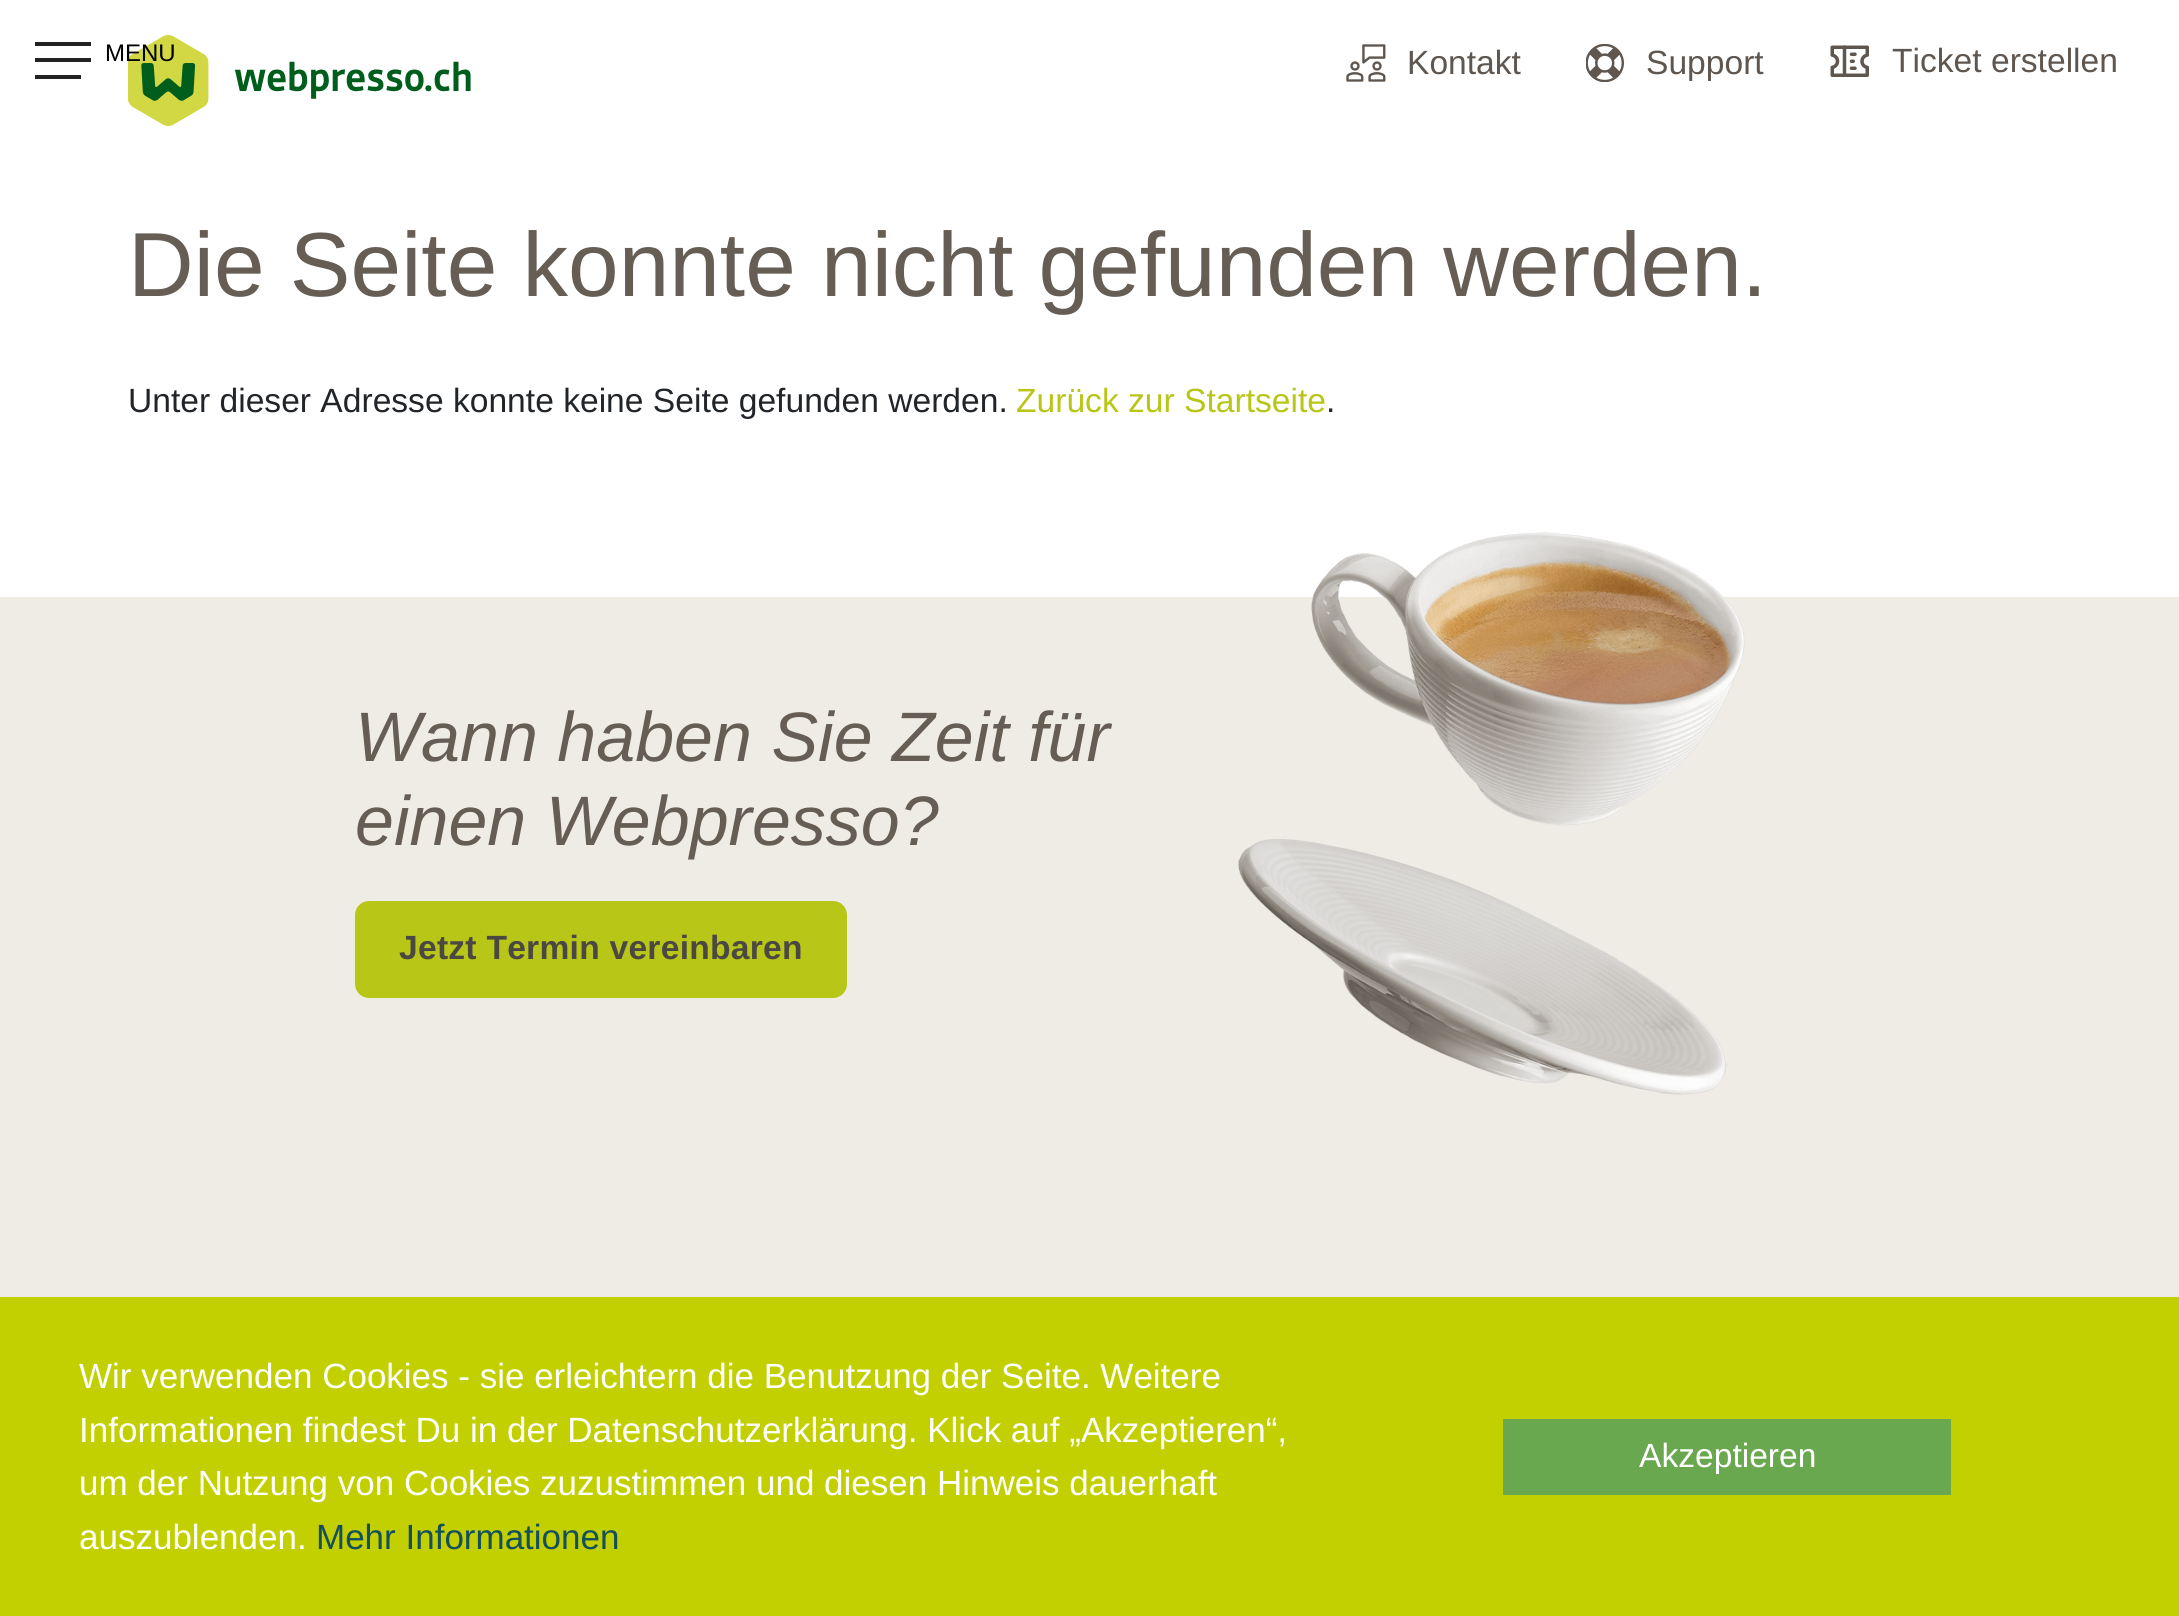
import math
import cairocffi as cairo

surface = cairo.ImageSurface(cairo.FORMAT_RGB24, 2179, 1616)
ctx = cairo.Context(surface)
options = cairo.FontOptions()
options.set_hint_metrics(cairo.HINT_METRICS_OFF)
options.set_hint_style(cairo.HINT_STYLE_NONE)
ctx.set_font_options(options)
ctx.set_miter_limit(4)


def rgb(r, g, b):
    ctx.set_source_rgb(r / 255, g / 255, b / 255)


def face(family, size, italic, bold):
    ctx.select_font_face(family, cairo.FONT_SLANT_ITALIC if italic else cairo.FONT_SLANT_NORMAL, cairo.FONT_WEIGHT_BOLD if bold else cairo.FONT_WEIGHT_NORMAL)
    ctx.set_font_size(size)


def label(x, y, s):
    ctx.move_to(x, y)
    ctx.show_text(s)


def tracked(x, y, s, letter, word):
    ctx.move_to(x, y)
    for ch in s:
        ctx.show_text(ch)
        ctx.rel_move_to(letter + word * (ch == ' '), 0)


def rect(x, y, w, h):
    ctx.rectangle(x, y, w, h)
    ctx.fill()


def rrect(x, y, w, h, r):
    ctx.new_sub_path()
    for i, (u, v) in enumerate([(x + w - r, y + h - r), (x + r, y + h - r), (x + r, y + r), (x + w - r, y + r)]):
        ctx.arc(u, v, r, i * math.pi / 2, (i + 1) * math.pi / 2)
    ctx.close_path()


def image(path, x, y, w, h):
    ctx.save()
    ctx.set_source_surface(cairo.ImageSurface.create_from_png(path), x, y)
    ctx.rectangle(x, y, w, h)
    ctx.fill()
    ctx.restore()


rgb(255, 255, 255)
ctx.paint()
rgb(34, 34, 34)
rect(35, 58, 56, 4)
rect(35, 42, 56, 4)
rect(35, 75, 46, 4)
image('image0.png', 128, 35, 343, 91)
face('Liberation Sans', 24, 0, 0)
rgb(0, 0, 0)
label(105, 61, 'MENU')
image('image1.png', 1346, 44, 40, 38)
face('Liberation Sans', 33.6, 0, 0)
rgb(95, 86, 79)
label(1407, 74, 'Kontakt')
image('image2.png', 1586, 44, 38, 38)
label(1646, 74, 'Support')
image('image3.png', 1830, 45, 39, 32)
label(1892, 72, 'Ticket erstellen')
face('Liberation Sans', 91, 0, 0)
rgb(102, 93, 85)
label(128, 296, 'Die Seite konnte nicht gefunden werden.')
face('Liberation Sans', 33.6, 0, 0)
rgb(33, 37, 41)
label(128, 412, 'Unter dieser Adresse konnte keine Seite gefunden werden.')
rgb(183, 198, 23)
label(1016, 412, 'Zurück zur Startseite')
rgb(33, 37, 41)
label(1326, 412, '.')
rgb(239, 236, 229)
rect(0, 597, 2179, 700)
face('Liberation Sans', 70, 1, 0)
rgb(102, 93, 85)
label(355, 761, 'Wann haben Sie Zeit für')
label(355, 845, 'einen Webpresso?')
rgb(183, 198, 23)
rrect(355, 901, 492, 97, 14)
ctx.fill()
face('Liberation Sans', 33.6, 0, 1)
rgb(75, 71, 67)
tracked(399, 959, 'Jetzt Termin vereinbaren', 0.25, 0)
image('image4.png', 1311, 532, 434, 294)
image('image5.png', 1238, 838, 489, 257)
rgb(194, 207, 0)
rect(0, 1297, 2179, 319)
face('Liberation Sans', 35, 0, 0)
rgb(255, 255, 255)
label(79, 1388, 'Wir verwenden Cookies - sie erleichtern die Benutzung der Seite. Weitere')
label(79, 1442, 'Informationen findest Du in der Datenschutzerklärung. Klick auf „Akzeptieren“,')
label(79, 1495, 'um der Nutzung von Cookies zuzustimmen und diesen Hinweis dauerhaft')
label(79, 1549, 'auszublenden.')
rgb(19, 79, 92)
label(316, 1549, 'Mehr Informationen')
rgb(106, 168, 79)
rect(1503, 1419, 448, 76)
face('Liberation Sans', 33.6, 0, 0)
rgb(255, 255, 255)
label(1639, 1467, 'Akzeptieren')
surface.write_to_png('render.png')
